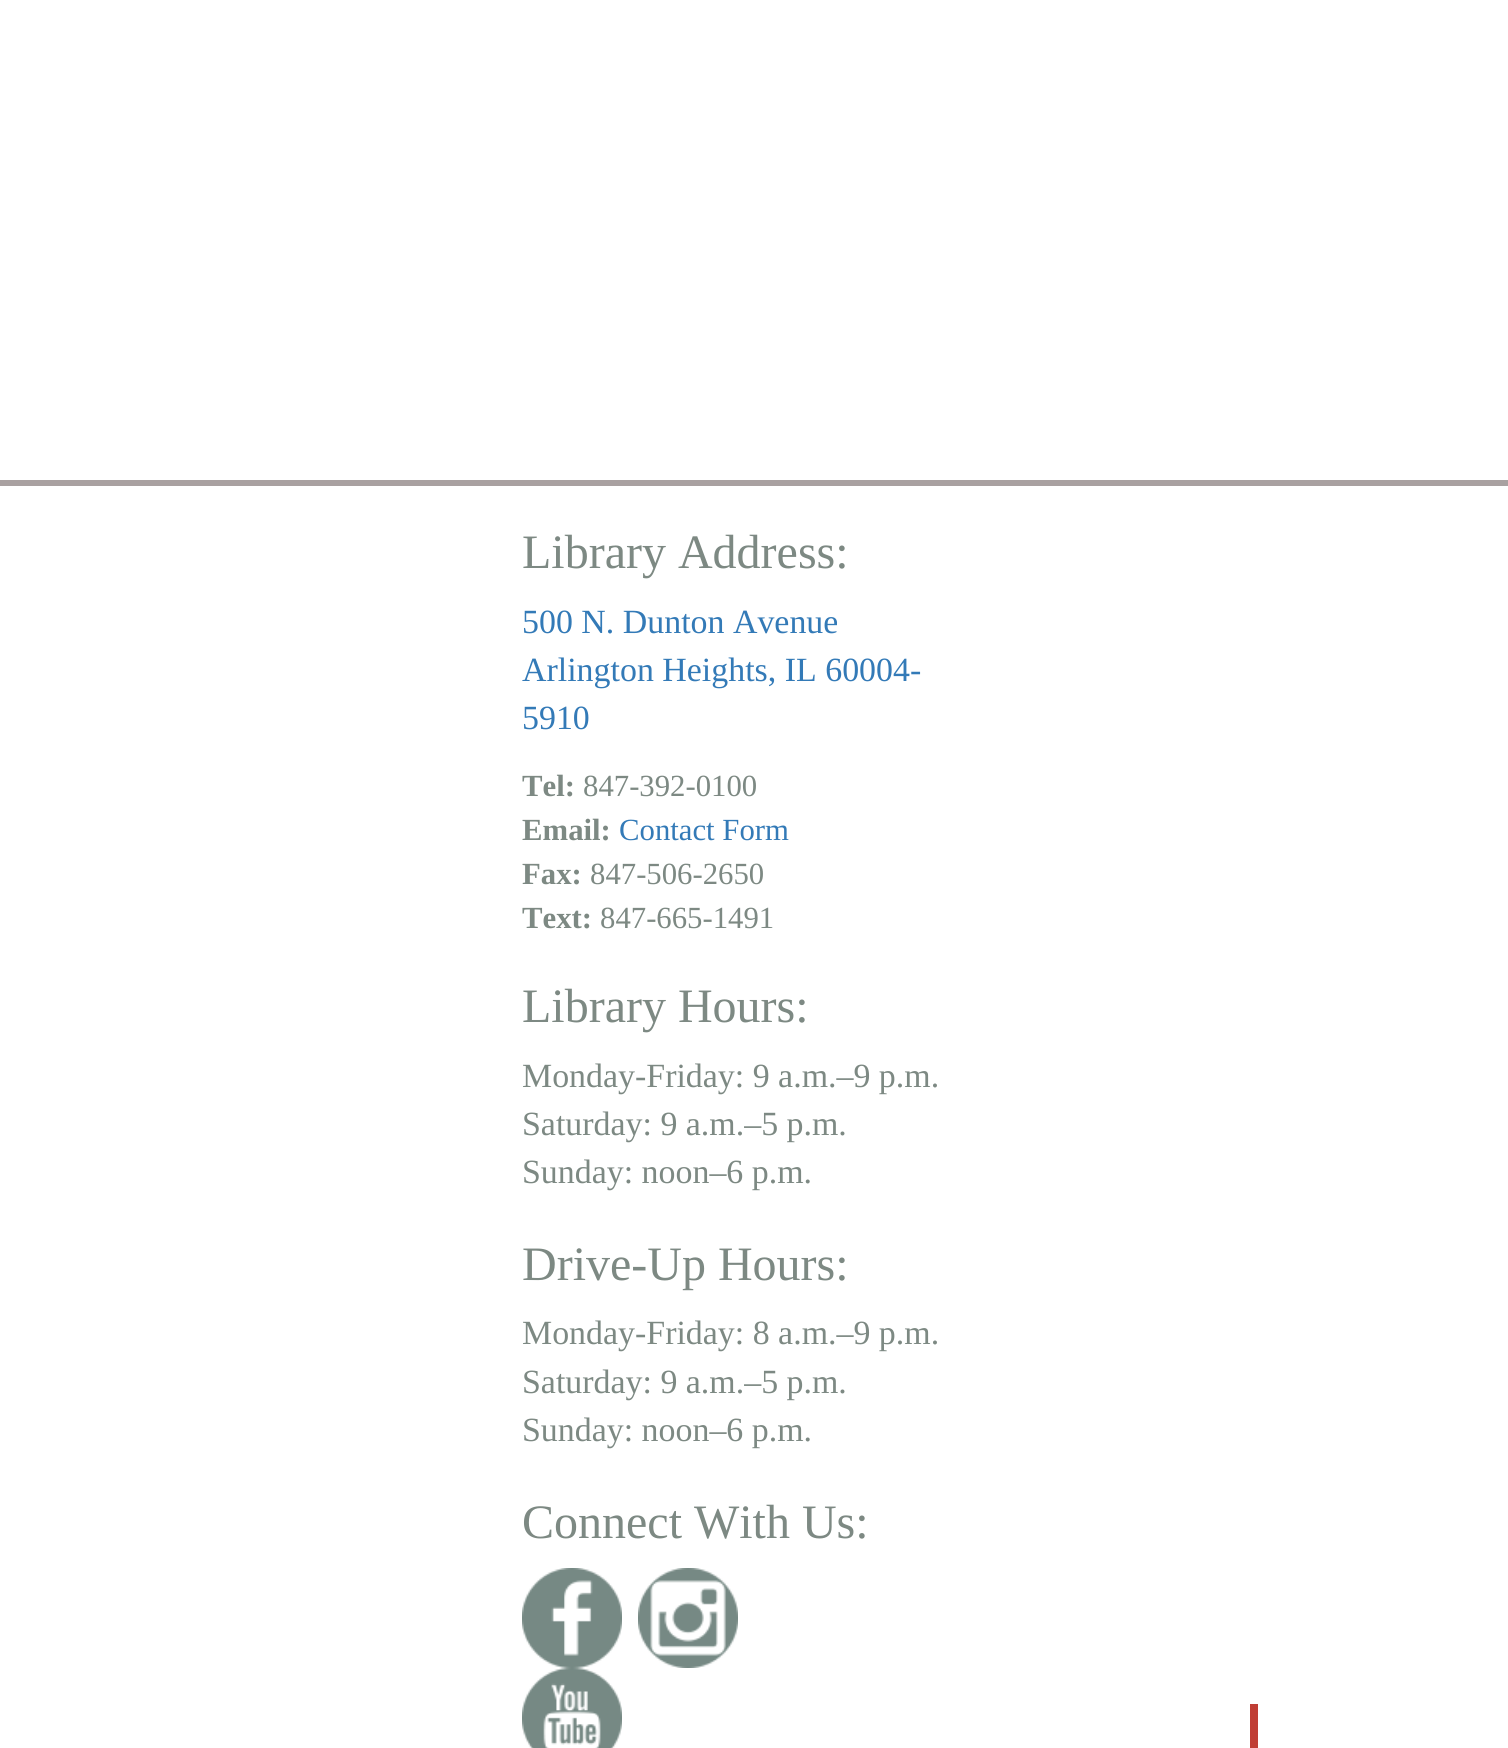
import math
import cairocffi as cairo

surface = cairo.ImageSurface(cairo.FORMAT_RGB24, 1508, 1748)
ctx = cairo.Context(surface)
options = cairo.FontOptions()
options.set_hint_metrics(cairo.HINT_METRICS_OFF)
options.set_hint_style(cairo.HINT_STYLE_NONE)
ctx.set_font_options(options)
ctx.set_miter_limit(4)


def rgb(r, g, b):
    ctx.set_source_rgb(r / 255, g / 255, b / 255)


def face(family, size, italic, bold):
    ctx.select_font_face(family, cairo.FONT_SLANT_ITALIC if italic else cairo.FONT_SLANT_NORMAL, cairo.FONT_WEIGHT_BOLD if bold else cairo.FONT_WEIGHT_NORMAL)
    ctx.set_font_size(size)


def label(x, y, s):
    ctx.move_to(x, y)
    ctx.show_text(s)


def rect(x, y, w, h):
    ctx.rectangle(x, y, w, h)
    ctx.fill()


def image(path, x, y, w, h):
    ctx.save()
    ctx.set_source_surface(cairo.ImageSurface.create_from_png(path), x, y)
    ctx.rectangle(x, y, w, h)
    ctx.fill()
    ctx.restore()


rgb(255, 255, 255)
ctx.paint()
rgb(169, 161, 161)
rect(0, 480, 1508, 6)
face('Liberation Serif', 48, 0, 0)
rgb(125, 137, 131)
label(522, 568, 'Library Address:')
face('Liberation Serif', 33.9, 0, 0)
rgb(51, 122, 183)
label(522, 633, '500 N. Dunton Avenue')
label(522, 681, 'Arlington Heights, IL 60004-')
label(522, 729, '5910')
face('Liberation Serif', 30.75, 0, 1)
rgb(125, 137, 131)
label(522, 796, 'Tel:')
face('Liberation Serif', 30.75, 0, 0)
label(583, 796, '847-392-0100')
face('Liberation Serif', 30.75, 0, 1)
label(522, 840, 'Email:')
face('Liberation Serif', 30.75, 0, 0)
rgb(51, 122, 183)
label(619, 840, 'Contact Form')
face('Liberation Serif', 30.75, 0, 1)
rgb(125, 137, 131)
label(522, 884, 'Fax:')
face('Liberation Serif', 30.75, 0, 0)
label(590, 884, '847-506-2650')
face('Liberation Serif', 30.75, 0, 1)
label(522, 928, 'Text:')
face('Liberation Serif', 30.75, 0, 0)
label(600, 928, '847-665-1491')
face('Liberation Serif', 48, 0, 0)
label(522, 1022, 'Library Hours:')
face('Liberation Serif', 33.9, 0, 0)
label(522, 1087, 'Monday-Friday: 9 a.m.–9 p.m.')
label(522, 1135, 'Saturday: 9 a.m.–5 p.m.')
label(522, 1183, 'Sunday: noon–6 p.m.')
face('Liberation Serif', 48, 0, 0)
label(522, 1280, 'Drive-Up Hours:')
face('Liberation Serif', 33.9, 0, 0)
label(522, 1344, 'Monday-Friday: 8 a.m.–9 p.m.')
label(522, 1393, 'Saturday: 9 a.m.–5 p.m.')
label(522, 1441, 'Sunday: noon–6 p.m.')
face('Liberation Serif', 48, 0, 0)
label(522, 1538, 'Connect With Us:')
image('image0.png', 522, 1568, 100, 100)
image('image1.png', 638, 1568, 100, 100)
image('image2.png', 522, 1668, 100, 80)
rgb(192, 62, 53)
rect(1250, 1704, 8, 44)
surface.write_to_png('render.png')
